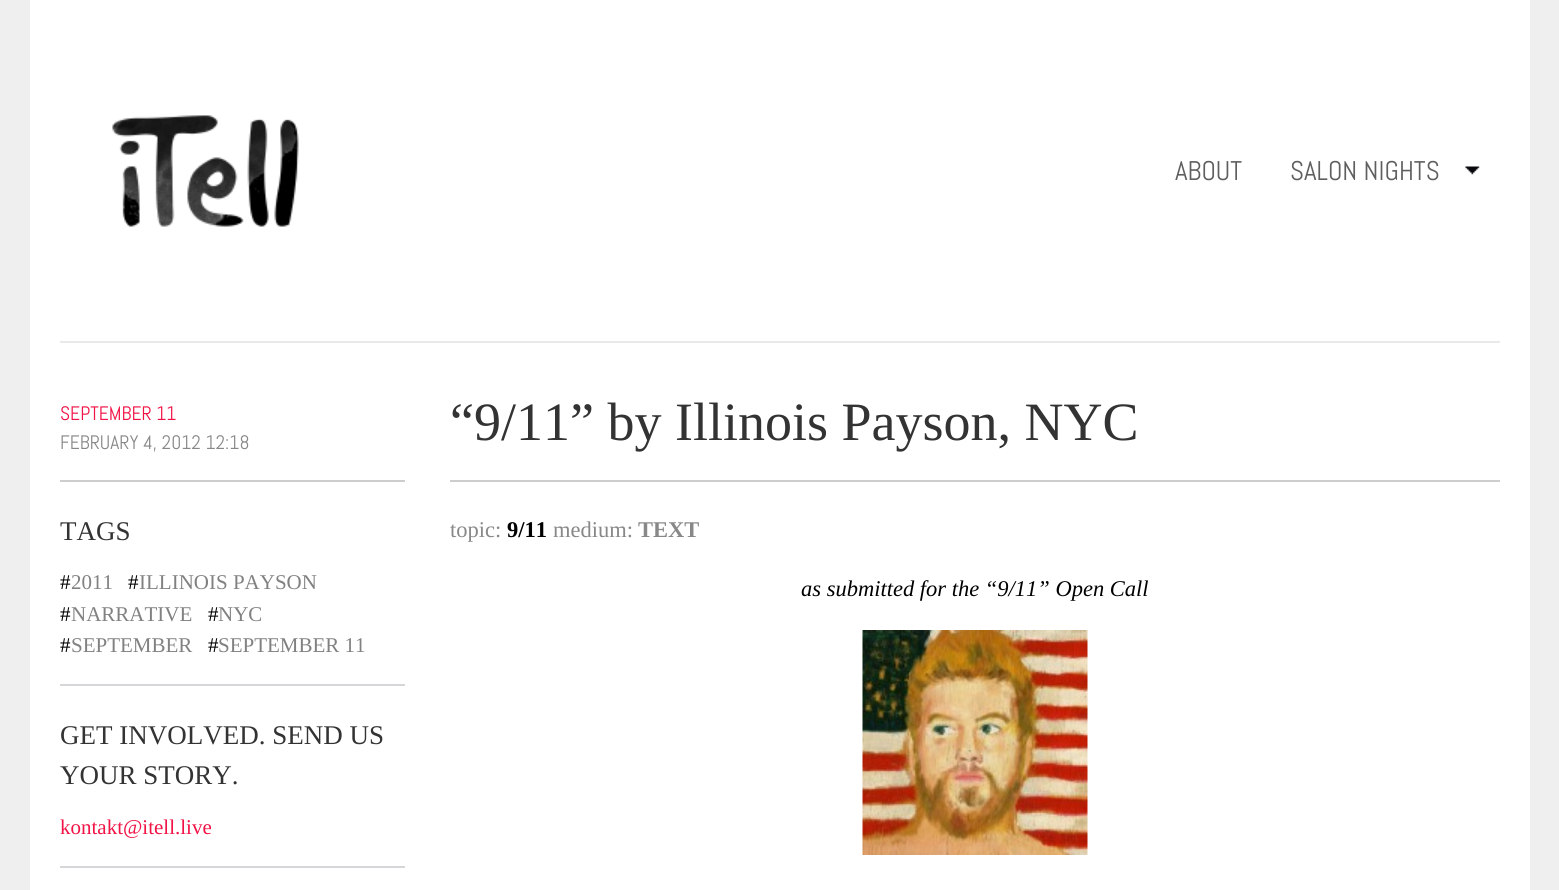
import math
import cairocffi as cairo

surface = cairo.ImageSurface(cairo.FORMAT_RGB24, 1559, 890)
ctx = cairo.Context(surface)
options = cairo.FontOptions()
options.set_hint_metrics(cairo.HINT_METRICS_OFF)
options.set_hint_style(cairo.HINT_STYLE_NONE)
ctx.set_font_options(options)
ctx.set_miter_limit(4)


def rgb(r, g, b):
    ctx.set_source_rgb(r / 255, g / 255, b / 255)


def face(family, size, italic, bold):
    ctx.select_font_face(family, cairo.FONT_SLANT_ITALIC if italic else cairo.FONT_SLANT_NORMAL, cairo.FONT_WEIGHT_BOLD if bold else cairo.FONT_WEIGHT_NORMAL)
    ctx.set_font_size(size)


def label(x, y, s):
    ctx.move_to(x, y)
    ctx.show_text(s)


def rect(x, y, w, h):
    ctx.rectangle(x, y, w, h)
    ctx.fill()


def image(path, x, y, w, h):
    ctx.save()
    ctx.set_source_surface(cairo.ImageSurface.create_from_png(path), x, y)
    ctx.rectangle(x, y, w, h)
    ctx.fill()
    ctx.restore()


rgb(239, 239, 239)
ctx.paint()
rgb(255, 255, 255)
rect(30, 0, 1500, 890)
rgb(233, 233, 233)
rect(60, 341, 1440, 2)
image('image0.png', 112, 115, 187, 112)
face('Abel', 27, 0, 0)
rgb(96, 95, 95)
label(1175, 180, 'ABOUT')
label(1290, 180, 'SALON NIGHTS')
image('image1.png', 1465, 166, 15, 9)
rgb(205, 205, 205)
rect(60, 480, 345, 2)
face('Abel', 19.5, 0, 0)
rgb(241, 19, 70)
label(60, 420, 'SEPTEMBER 11')
rgb(136, 136, 136)
label(60, 449, 'FEBRUARY 4, 2012 12:18')
rgb(205, 205, 205)
rect(450, 480, 1050, 2)
face('Liberation Serif', 54, 0, 0)
rgb(51, 51, 51)
label(450, 440, '“9/11” by Illinois Payson, NYC')
rgb(213, 214, 215)
rect(60, 684, 345, 2)
face('Liberation Serif', 27, 0, 0)
rgb(51, 51, 51)
label(60, 540, 'TAGS')
face('Liberation Serif', 21, 0, 0)
rgb(0, 0, 0)
label(60, 589, '#')
rgb(129, 129, 129)
label(71, 589, '2011')
rgb(0, 0, 0)
label(128, 589, '#')
rgb(129, 129, 129)
label(139, 589, 'ILLINOIS PAYSON')
rgb(0, 0, 0)
label(60, 621, '#')
rgb(129, 129, 129)
label(71, 621, 'NARRATIVE')
rgb(0, 0, 0)
label(208, 621, '#')
rgb(129, 129, 129)
label(218, 621, 'NYC')
rgb(0, 0, 0)
label(60, 652, '#')
rgb(129, 129, 129)
label(71, 652, 'SEPTEMBER')
rgb(0, 0, 0)
label(208, 652, '#')
rgb(129, 129, 129)
label(218, 652, 'SEPTEMBER 11')
rgb(213, 214, 215)
rect(60, 866, 345, 2)
face('Liberation Serif', 27, 0, 0)
rgb(51, 51, 51)
label(60, 744, 'GET INVOLVED. SEND US')
label(60, 784, 'YOUR STORY.')
face('Liberation Serif', 21, 0, 0)
rgb(241, 19, 70)
label(60, 834, 'kontakt@itell.live')
face('Liberation Serif', 22.5, 0, 0)
rgb(136, 136, 136)
label(450, 537, 'topic:')
face('Liberation Serif', 22.5, 0, 1)
rgb(0, 0, 0)
label(507, 537, '9/11')
face('Liberation Serif', 22.5, 0, 0)
rgb(136, 136, 136)
label(553, 537, 'medium:')
face('Liberation Serif', 22.5, 0, 1)
label(638, 537, 'TEXT')
face('Liberation Serif', 22.5, 1, 0)
rgb(0, 0, 0)
label(801, 596, 'as submitted for the “9/11” Open Call')
image('image2.png', 862, 630, 226, 225)
surface.write_to_png('render.png')
